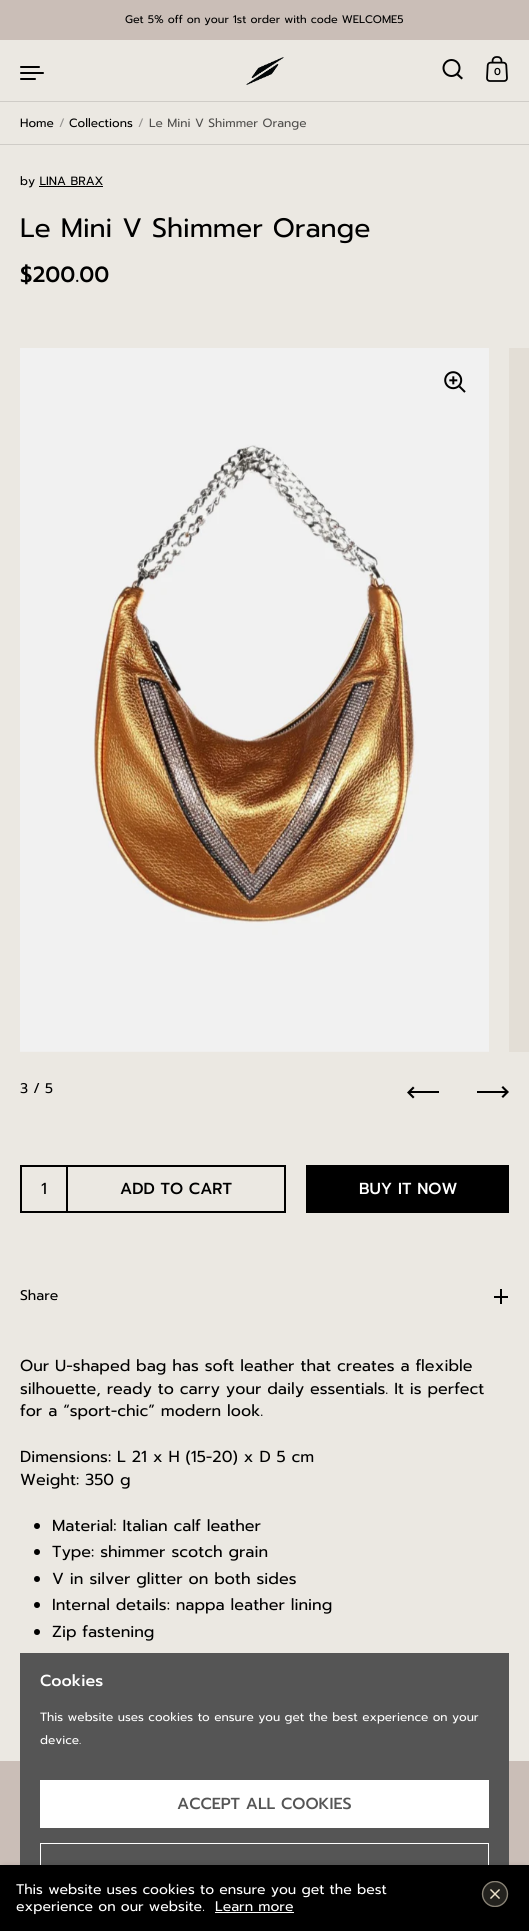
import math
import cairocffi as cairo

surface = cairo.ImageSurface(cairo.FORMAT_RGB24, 529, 1931)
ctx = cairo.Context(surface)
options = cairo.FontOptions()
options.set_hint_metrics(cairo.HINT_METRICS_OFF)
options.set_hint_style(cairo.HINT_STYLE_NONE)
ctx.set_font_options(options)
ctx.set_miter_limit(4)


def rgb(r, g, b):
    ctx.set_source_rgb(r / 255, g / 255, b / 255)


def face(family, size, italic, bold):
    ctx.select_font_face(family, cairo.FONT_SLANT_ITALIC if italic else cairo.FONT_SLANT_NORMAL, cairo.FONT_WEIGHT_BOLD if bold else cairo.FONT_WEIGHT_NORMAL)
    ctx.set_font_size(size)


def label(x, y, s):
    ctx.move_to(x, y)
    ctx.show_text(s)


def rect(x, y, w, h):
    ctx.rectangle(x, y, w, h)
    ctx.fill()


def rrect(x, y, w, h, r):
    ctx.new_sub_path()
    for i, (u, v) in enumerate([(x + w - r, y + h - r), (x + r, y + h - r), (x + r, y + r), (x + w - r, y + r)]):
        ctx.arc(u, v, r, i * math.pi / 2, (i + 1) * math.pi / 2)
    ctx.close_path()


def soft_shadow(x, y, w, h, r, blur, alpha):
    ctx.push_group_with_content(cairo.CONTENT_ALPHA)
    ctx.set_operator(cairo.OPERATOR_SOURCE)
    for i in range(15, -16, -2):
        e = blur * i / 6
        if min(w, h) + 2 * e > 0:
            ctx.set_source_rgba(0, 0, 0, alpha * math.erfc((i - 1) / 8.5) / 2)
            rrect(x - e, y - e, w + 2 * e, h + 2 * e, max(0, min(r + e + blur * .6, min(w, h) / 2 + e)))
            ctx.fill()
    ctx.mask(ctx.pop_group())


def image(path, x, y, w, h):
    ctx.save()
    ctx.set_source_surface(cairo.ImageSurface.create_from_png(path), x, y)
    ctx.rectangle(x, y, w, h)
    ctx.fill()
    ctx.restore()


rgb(235, 232, 226)
ctx.paint()
rgb(202, 190, 183)
rect(0, 0, 529, 40)
face('Prompt', 11, 0, 0)
rgb(0, 0, 0)
label(125, 23, 'Get 5% off on your 1st order with code WELCOME5')
rgb(207, 204, 199)
rect(0, 101, 529, 1)
rgb(0, 0, 0)
rrect(20, 66, 20, 2, 1)
ctx.fill()
rrect(20, 72, 24, 2, 1)
ctx.fill()
rrect(20, 78, 16, 2, 1)
ctx.fill()
image('image0.png', 246, 57, 38, 28)
ctx.arc(451.5, 68, 8, 0, 2 * math.pi)
ctx.stroke()
ctx.new_path()
ctx.move_to(456.5, 75)
ctx.line_to(458, 73.5)
ctx.line_to(463, 78)
ctx.line_to(461.5, 79.5)
ctx.close_path()
ctx.fill()
image('image1.png', 486, 56, 22, 26)
face('Prompt Medium', 10, 0, 0)
label(494, 75, '0')
rgb(207, 204, 199)
rect(0, 144, 529, 1)
face('Prompt', 12, 0, 0)
rgb(0, 0, 0)
label(20, 127, 'Home')
rgb(150, 148, 145)
label(59, 127, '/')
rgb(0, 0, 0)
label(69, 127, 'Collections')
rgb(150, 148, 145)
label(138, 127, '/')
rgb(80, 79, 77)
label(149, 127, 'Le Mini V Shimmer Orange')
rgb(0, 0, 0)
label(20, 185, 'by LINA BRAX')
rect(39, 186, 64, 1)
face('Prompt', 26.7, 0, 0)
label(20, 237, 'Le Mini V Shimmer Orange')
face('Prompt Medium', 22, 0, 0)
label(20, 282, '$200.00')
image('image2.png', 20, 348, 469, 704)
image('image3.png', 444, 371, 22, 22)
rgb(227, 222, 214)
rect(509, 348, 20, 704)
face('Prompt', 14, 0, 0)
rgb(0, 0, 0)
label(20, 1093, '3 / 5')
rect(409, 1091, 30, 2)
ctx.new_path()
ctx.move_to(407, 1092.5)
ctx.line_to(413, 1098.5)
ctx.line_to(414.5, 1097)
ctx.line_to(410, 1092.5)
ctx.line_to(414.5, 1088)
ctx.line_to(413, 1086.5)
ctx.line_to(408.5, 1091)
ctx.close_path()
ctx.fill()
rect(477, 1091, 30, 2)
ctx.new_path()
ctx.move_to(509, 1092)
ctx.line_to(503, 1086)
ctx.line_to(501.5, 1087.5)
ctx.line_to(506, 1092)
ctx.line_to(501.5, 1096.5)
ctx.line_to(503, 1098)
ctx.line_to(507.5, 1093.5)
ctx.close_path()
ctx.fill()
ctx.rectangle(21, 1166, 46, 46)
ctx.stroke()
face('Prompt', 16, 0, 0)
label(41, 1194, '1')
ctx.rectangle(67, 1166, 218, 46)
ctx.stroke()
face('Prompt Medium', 16, 0, 0)
label(120, 1194, 'ADD TO CART')
rect(306, 1165, 203, 48)
rgb(255, 255, 255)
label(359, 1194, 'BUY IT NOW')
face('Prompt', 14, 0, 0)
rgb(0, 0, 0)
label(20, 1300, 'Share')
rect(494, 1296, 14, 2)
rect(500, 1289, 2, 15)
face('Prompt', 16, 0, 0)
label(20, 1371, 'Our U-shaped bag has soft leather that creates a flexible')
label(20, 1394, 'silhouette, ready to carry your daily essentials. It is perfect')
label(20, 1416, 'for a “sport-chic” modern look.')
label(20, 1462, 'Dimensions: L 21 x H (15-20) x D 5 cm')
label(20, 1485, 'Weight: 350 g')
ctx.new_path()
ctx.arc(37, 1526, 3, 0, 2 * math.pi)
ctx.fill()
label(52, 1531, 'Material: Italian calf leather')
ctx.new_path()
ctx.arc(37, 1552, 3, 0, 2 * math.pi)
ctx.fill()
label(52, 1557, 'Type: shimmer scotch grain')
ctx.new_path()
ctx.arc(37, 1579, 3, 0, 2 * math.pi)
ctx.fill()
label(52, 1584, 'V in silver glitter on both sides')
ctx.new_path()
ctx.arc(37, 1605, 3, 0, 2 * math.pi)
ctx.fill()
label(52, 1610, 'Internal details: nappa leather lining')
ctx.new_path()
ctx.arc(37, 1632, 3, 0, 2 * math.pi)
ctx.fill()
label(52, 1637, 'Zip fastening')
rgb(202, 190, 183)
rect(0, 1761, 529, 104)
rgb(85, 85, 85)
rect(20, 1653, 489, 212)
face('Prompt Medium', 16, 0, 0)
rgb(255, 255, 255)
label(40, 1686, 'Cookies')
face('Prompt', 12, 0, 0)
label(40, 1721, 'This website uses cookies to ensure you get the best experience on your')
label(40, 1744, 'device.')
rect(40, 1780, 449, 48)
face('Prompt Medium', 16, 0, 0)
rgb(85, 85, 85)
label(177, 1809, 'ACCEPT ALL COOKIES')
ctx.rectangle(40.5, 1843.5, 448, 47)
rgb(255, 255, 255)
ctx.set_line_width(1)
ctx.stroke()
rgb(0, 0, 0)
rect(0, 1865, 529, 66)
ctx.save()
ctx.set_fill_rule(cairo.FILL_RULE_EVEN_ODD)
ctx.new_path()
ctx.move_to(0, 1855)
ctx.line_to(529, 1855)
ctx.line_to(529, 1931)
ctx.line_to(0, 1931)
ctx.close_path()
ctx.move_to(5, 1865)
ctx.line_to(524, 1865)
ctx.curve_to(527, 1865, 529, 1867, 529, 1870)
ctx.line_to(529, 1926)
ctx.curve_to(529, 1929, 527, 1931, 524, 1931)
ctx.line_to(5, 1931)
ctx.curve_to(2, 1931, 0, 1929, 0, 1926)
ctx.line_to(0, 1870)
ctx.curve_to(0, 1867, 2, 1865, 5, 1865)
ctx.close_path()
ctx.clip()
rgb(0, 0, 0)
soft_shadow(0, 1865, 529, 66, 5, 3, 0.12)
ctx.restore()
face('Prompt', 14, 0, 0)
rgb(255, 255, 255)
label(16, 1894, 'This website uses cookies to ensure you get the best')
label(16, 1911, 'experience on our website.')
label(215, 1911, 'Learn more')
rect(215, 1912, 79, 1)
image('image4.png', 481, 1881, 28, 26)
surface.write_to_png('render.png')
